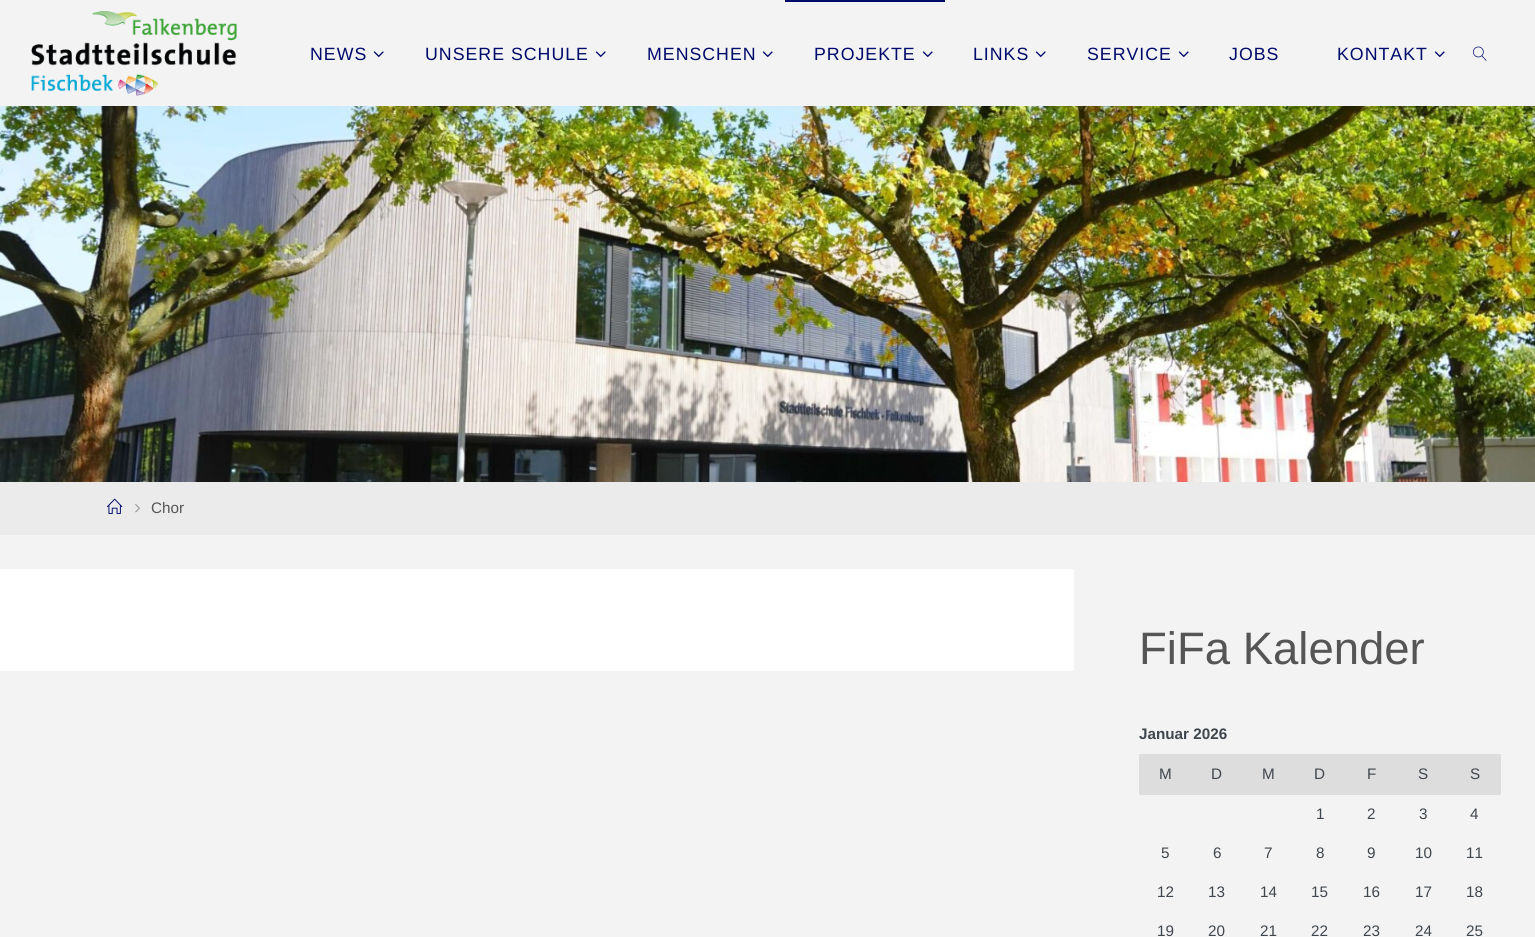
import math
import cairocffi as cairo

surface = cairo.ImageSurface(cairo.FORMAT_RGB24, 1535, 937)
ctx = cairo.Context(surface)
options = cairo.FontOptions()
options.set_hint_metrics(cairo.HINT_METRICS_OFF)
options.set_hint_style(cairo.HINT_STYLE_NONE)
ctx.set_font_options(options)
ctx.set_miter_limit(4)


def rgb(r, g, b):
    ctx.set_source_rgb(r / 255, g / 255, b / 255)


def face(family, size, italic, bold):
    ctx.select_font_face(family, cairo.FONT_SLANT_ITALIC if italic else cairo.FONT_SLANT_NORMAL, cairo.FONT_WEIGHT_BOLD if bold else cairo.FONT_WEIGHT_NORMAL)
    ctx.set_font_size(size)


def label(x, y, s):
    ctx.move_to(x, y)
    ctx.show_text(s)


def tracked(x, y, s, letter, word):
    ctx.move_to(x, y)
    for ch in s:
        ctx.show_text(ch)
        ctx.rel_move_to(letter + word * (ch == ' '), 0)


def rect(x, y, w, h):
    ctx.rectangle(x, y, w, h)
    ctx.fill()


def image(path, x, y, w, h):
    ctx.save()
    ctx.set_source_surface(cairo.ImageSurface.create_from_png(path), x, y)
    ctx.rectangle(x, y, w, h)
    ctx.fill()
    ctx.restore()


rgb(243, 243, 243)
ctx.paint()
image('image0.png', 31, 11, 206, 85)
face('Liberation Sans', 17.75, 0, 0)
rgb(0, 10, 107)
tracked(310, 60, 'NEWS', 1, 0)
image('image1.png', 373, 51, 11, 7)
tracked(425, 60, 'UNSERE SCHULE', 1, 0)
image('image1.png', 595, 51, 11, 7)
tracked(647, 60, 'MENSCHEN', 1, 0)
image('image1.png', 762, 51, 11, 7)
rect(785, 0, 160, 2)
tracked(814, 60, 'PROJEKTE', 1, 0)
image('image1.png', 922, 51, 11, 7)
tracked(973, 60, 'LINKS', 1, 0)
image('image1.png', 1035, 51, 11, 7)
tracked(1087, 60, 'SERVICE', 1, 0)
image('image1.png', 1178, 51, 11, 7)
tracked(1229, 60, 'JOBS', 1, 0)
tracked(1337, 60, 'KONTAKT', 1, 0)
image('image1.png', 1434, 51, 11, 7)
image('image2.png', 1473, 46, 14, 15)
image('image3.png', 0, 106, 1535, 376)
rgb(235, 235, 235)
rect(0, 482, 1535, 53)
image('image4.png', 107, 498, 16, 16)
image('image5.png', 135, 504, 5, 9)
face('Liberation Sans', 15.25, 0, 0)
rgb(85, 85, 85)
label(151, 513, 'Chor')
rgb(255, 255, 255)
rect(0, 569, 1074, 102)
face('Liberation Sans', 45.5, 0, 0)
rgb(85, 85, 85)
label(1139, 664, 'FiFa Kalender')
face('Liberation Sans', 15.25, 0, 1)
rgb(64, 70, 77)
label(1139, 739, 'Januar 2026')
rgb(221, 221, 221)
rect(1140, 755, 360, 39)
rect(1139, 754, 362, 1)
rect(1500, 754, 1, 41)
rect(1139, 794, 362, 1)
rect(1139, 754, 1, 41)
face('Liberation Sans', 15.25, 0, 0)
rgb(64, 70, 77)
label(1159, 779, 'M')
label(1211, 779, 'D')
label(1262, 779, 'M')
label(1314, 779, 'D')
label(1367, 779, 'F')
label(1418, 779, 'S')
label(1470, 779, 'S')
label(1316, 819, '1')
label(1367, 819, '2')
label(1419, 819, '3')
label(1470, 819, '4')
label(1161, 858, '5')
label(1213, 858, '6')
label(1264, 858, '7')
label(1316, 858, '8')
label(1367, 858, '9')
label(1415, 858, '10')
label(1466, 858, '11')
label(1157, 897, '12')
label(1208, 897, '13')
label(1260, 897, '14')
label(1311, 897, '15')
label(1363, 897, '16')
label(1415, 897, '17')
label(1466, 897, '18')
label(1157, 936, '19')
label(1208, 936, '20')
label(1260, 936, '21')
label(1311, 936, '22')
label(1363, 936, '23')
label(1415, 936, '24')
label(1466, 936, '25')
surface.write_to_png('render.png')
